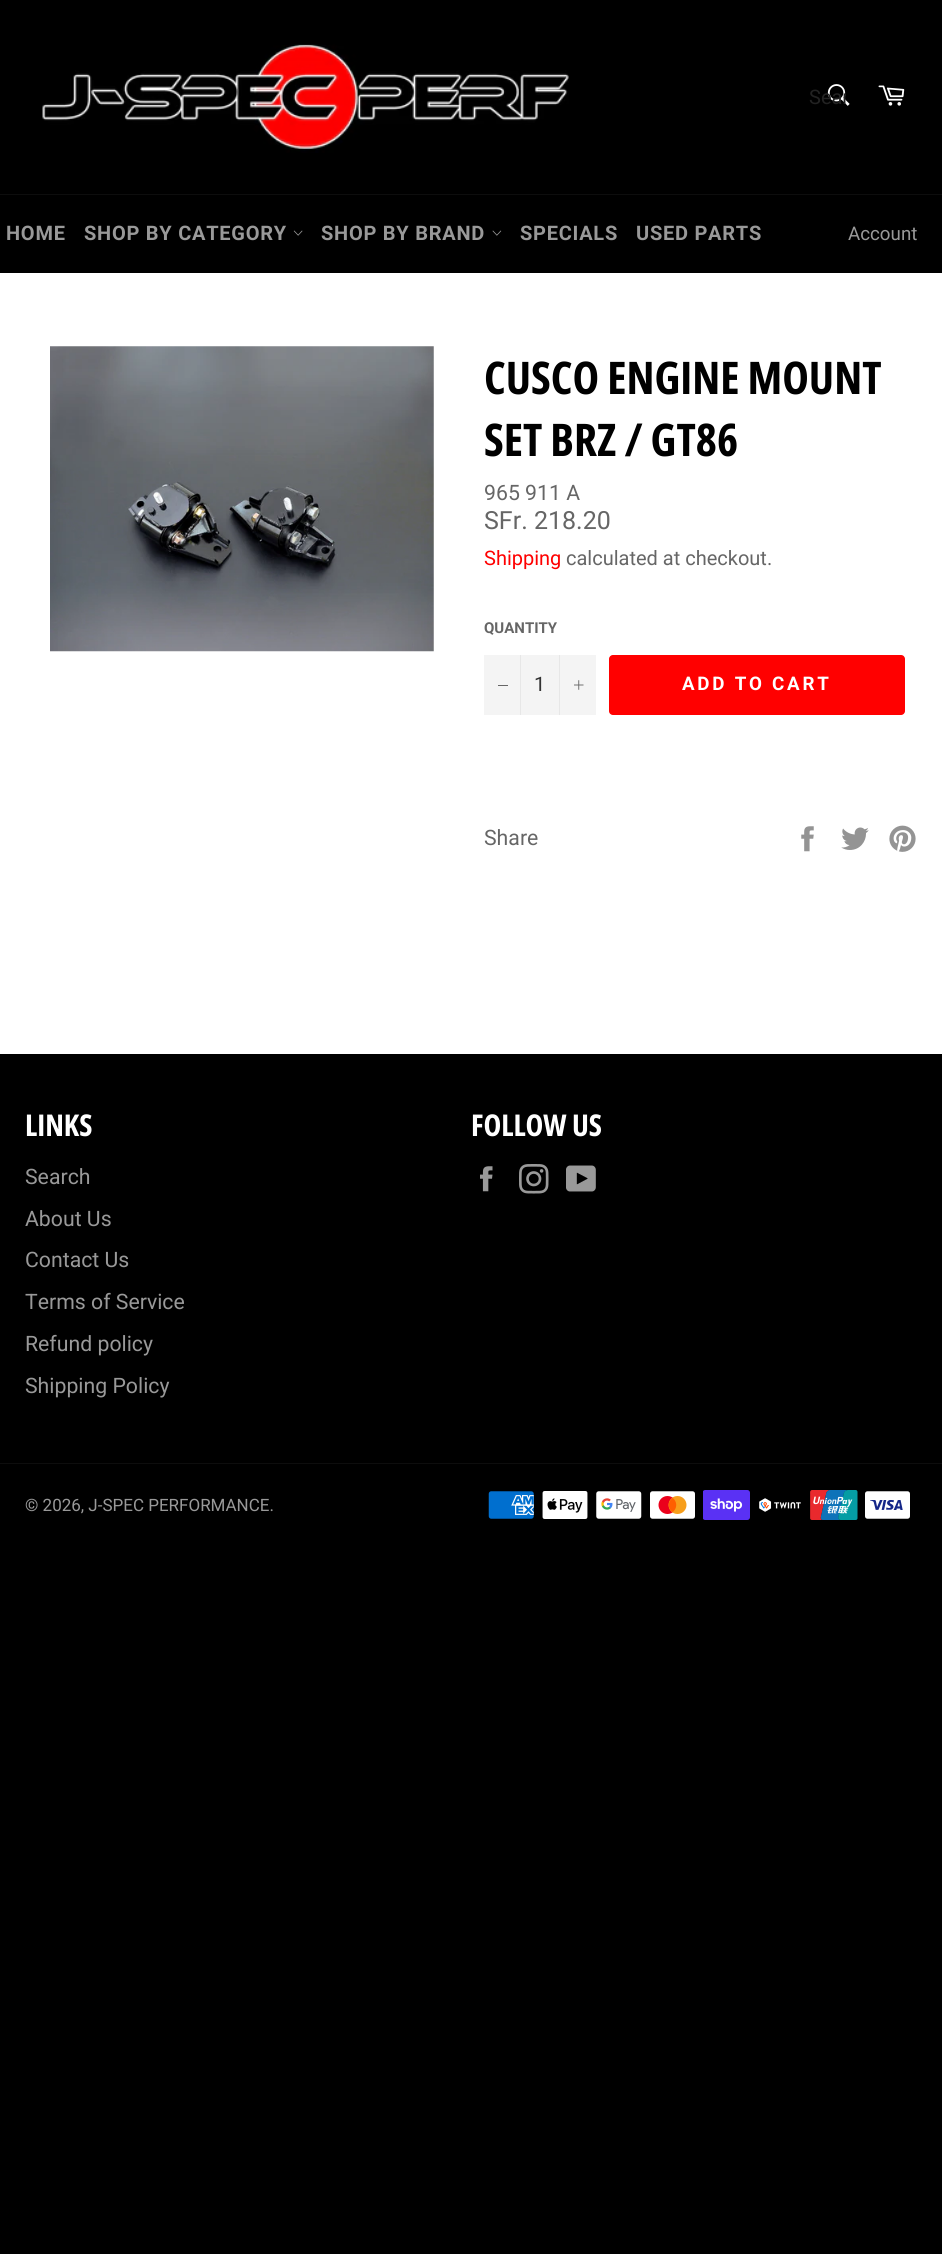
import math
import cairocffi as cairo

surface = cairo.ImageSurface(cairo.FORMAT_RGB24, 942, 2254)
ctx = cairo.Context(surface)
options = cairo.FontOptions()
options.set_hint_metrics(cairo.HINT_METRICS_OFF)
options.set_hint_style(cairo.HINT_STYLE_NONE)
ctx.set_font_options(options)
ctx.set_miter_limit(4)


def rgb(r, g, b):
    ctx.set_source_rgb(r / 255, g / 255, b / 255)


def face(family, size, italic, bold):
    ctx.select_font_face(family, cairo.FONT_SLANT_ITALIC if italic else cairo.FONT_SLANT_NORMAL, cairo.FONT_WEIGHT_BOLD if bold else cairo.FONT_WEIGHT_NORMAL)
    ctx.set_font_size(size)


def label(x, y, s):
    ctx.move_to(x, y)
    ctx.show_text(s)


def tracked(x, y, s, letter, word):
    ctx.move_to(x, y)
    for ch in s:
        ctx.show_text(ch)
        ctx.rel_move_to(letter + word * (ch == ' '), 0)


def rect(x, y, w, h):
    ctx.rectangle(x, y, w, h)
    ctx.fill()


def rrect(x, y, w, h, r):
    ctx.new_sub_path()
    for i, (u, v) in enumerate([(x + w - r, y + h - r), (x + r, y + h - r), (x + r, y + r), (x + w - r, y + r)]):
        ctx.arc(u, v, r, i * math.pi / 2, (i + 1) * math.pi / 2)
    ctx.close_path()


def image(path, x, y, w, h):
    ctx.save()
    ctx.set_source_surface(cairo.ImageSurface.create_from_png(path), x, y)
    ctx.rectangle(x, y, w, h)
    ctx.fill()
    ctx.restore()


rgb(0, 0, 0)
ctx.paint()
rgb(255, 255, 255)
rect(0, 273, 942, 781)
image('image0.png', 42, 44, 527, 109)
image('image1.png', 827, 84, 23, 22)
ctx.save()
ctx.rectangle(809, 85, 37, 24)
ctx.clip()
face('Roboto', 20, 0, 0)
rgb(34, 34, 34)
label(809, 104, 'Sear')
ctx.restore()
image('image2.png', 878, 85, 27, 21)
rgb(13, 13, 13)
rect(0, 194, 942, 1)
face('Roboto', 20, 0, 1)
rgb(153, 153, 153)
tracked(6, 240, 'HOME', 0.75, 0)
tracked(84, 240, 'SHOP BY CATEGORY', 0.75, 0)
image('image3.png', 293, 230, 10, 6)
tracked(321, 240, 'SHOP BY BRAND', 0.75, 0)
image('image4.png', 492, 230, 10, 6)
tracked(520, 240, 'SPECIALS', 0.75, 0)
tracked(636, 240, 'USED PARTS', 0.75, 0)
face('Roboto', 18.75, 0, 0)
label(848, 240, 'Account')
image('image5.png', 50, 346, 384, 306)
face('Open Sans Condensed', 45, 0, 1)
rgb(0, 0, 0)
label(484, 394, 'CUSCO ENGINE MOUNT')
label(484, 456, 'SET BRZ / GT86')
face('Roboto', 21.25, 0, 0)
rgb(102, 102, 102)
label(484, 500, '965 911 A')
face('Roboto', 25, 0, 0)
label(484, 529, 'SFr. 218.20')
face('Roboto', 20, 0, 0)
rgb(255, 0, 0)
label(484, 565, 'Shipping')
rgb(102, 102, 102)
label(566, 565, 'calculated at checkout.')
face('Roboto', 15, 0, 1)
label(484, 633, 'QUANTITY')
rgb(244, 244, 244)
rect(484, 655, 112, 60)
rgb(231, 231, 231)
rect(520, 655, 1, 60)
rgb(102, 102, 102)
rect(498, 685, 10, 1)
face('Roboto', 20, 0, 0)
rgb(51, 51, 51)
label(534, 691, '1')
rgb(231, 231, 231)
rect(559, 655, 1, 60)
image('image6.png', 574, 680, 10, 10)
rgb(255, 0, 0)
rrect(609, 655, 296, 60, 4)
ctx.fill()
face('Roboto', 18.75, 0, 1)
rgb(255, 255, 255)
tracked(682, 690, 'ADD TO CART', 2.75, 0)
face('Roboto', 21.25, 0, 0)
rgb(102, 102, 102)
label(484, 845, 'Share')
image('image7.png', 801, 826, 13, 26)
image('image8.png', 841, 827, 28, 23)
image('image9.png', 889, 825, 27, 27)
face('Open Sans Condensed', 30, 0, 1)
rgb(255, 255, 255)
label(25, 1136, 'LINKS')
face('Roboto', 21.25, 0, 0)
rgb(153, 153, 153)
label(25, 1184, 'Search')
label(25, 1226, 'About Us')
label(25, 1267, 'Contact Us')
label(25, 1309, 'Terms of Service')
label(25, 1351, 'Refund policy')
label(25, 1393, 'Shipping Policy')
face('Open Sans Condensed', 30, 0, 1)
rgb(255, 255, 255)
label(471, 1136, 'FOLLOW US')
image('image10.png', 480, 1166, 13, 26)
image('image11.png', 519, 1164, 30, 30)
image('image12.png', 566, 1165, 30, 27)
rgb(13, 13, 13)
rect(0, 1463, 942, 1)
face('Roboto', 17, 0, 0)
rgb(153, 153, 153)
label(25, 1511, '© 2026, J-SPEC PERFORMANCE.')
image('image13.png', 488, 1491, 46, 28)
image('image14.png', 542, 1491, 46, 28)
image('image15.png', 596, 1491, 46, 28)
image('image16.png', 650, 1491, 45, 28)
image('image17.png', 703, 1490, 47, 30)
image('image18.png', 759, 1498, 42, 14)
image('image19.png', 810, 1490, 48, 30)
image('image20.png', 865, 1491, 45, 28)
surface.write_to_png('render.png')
